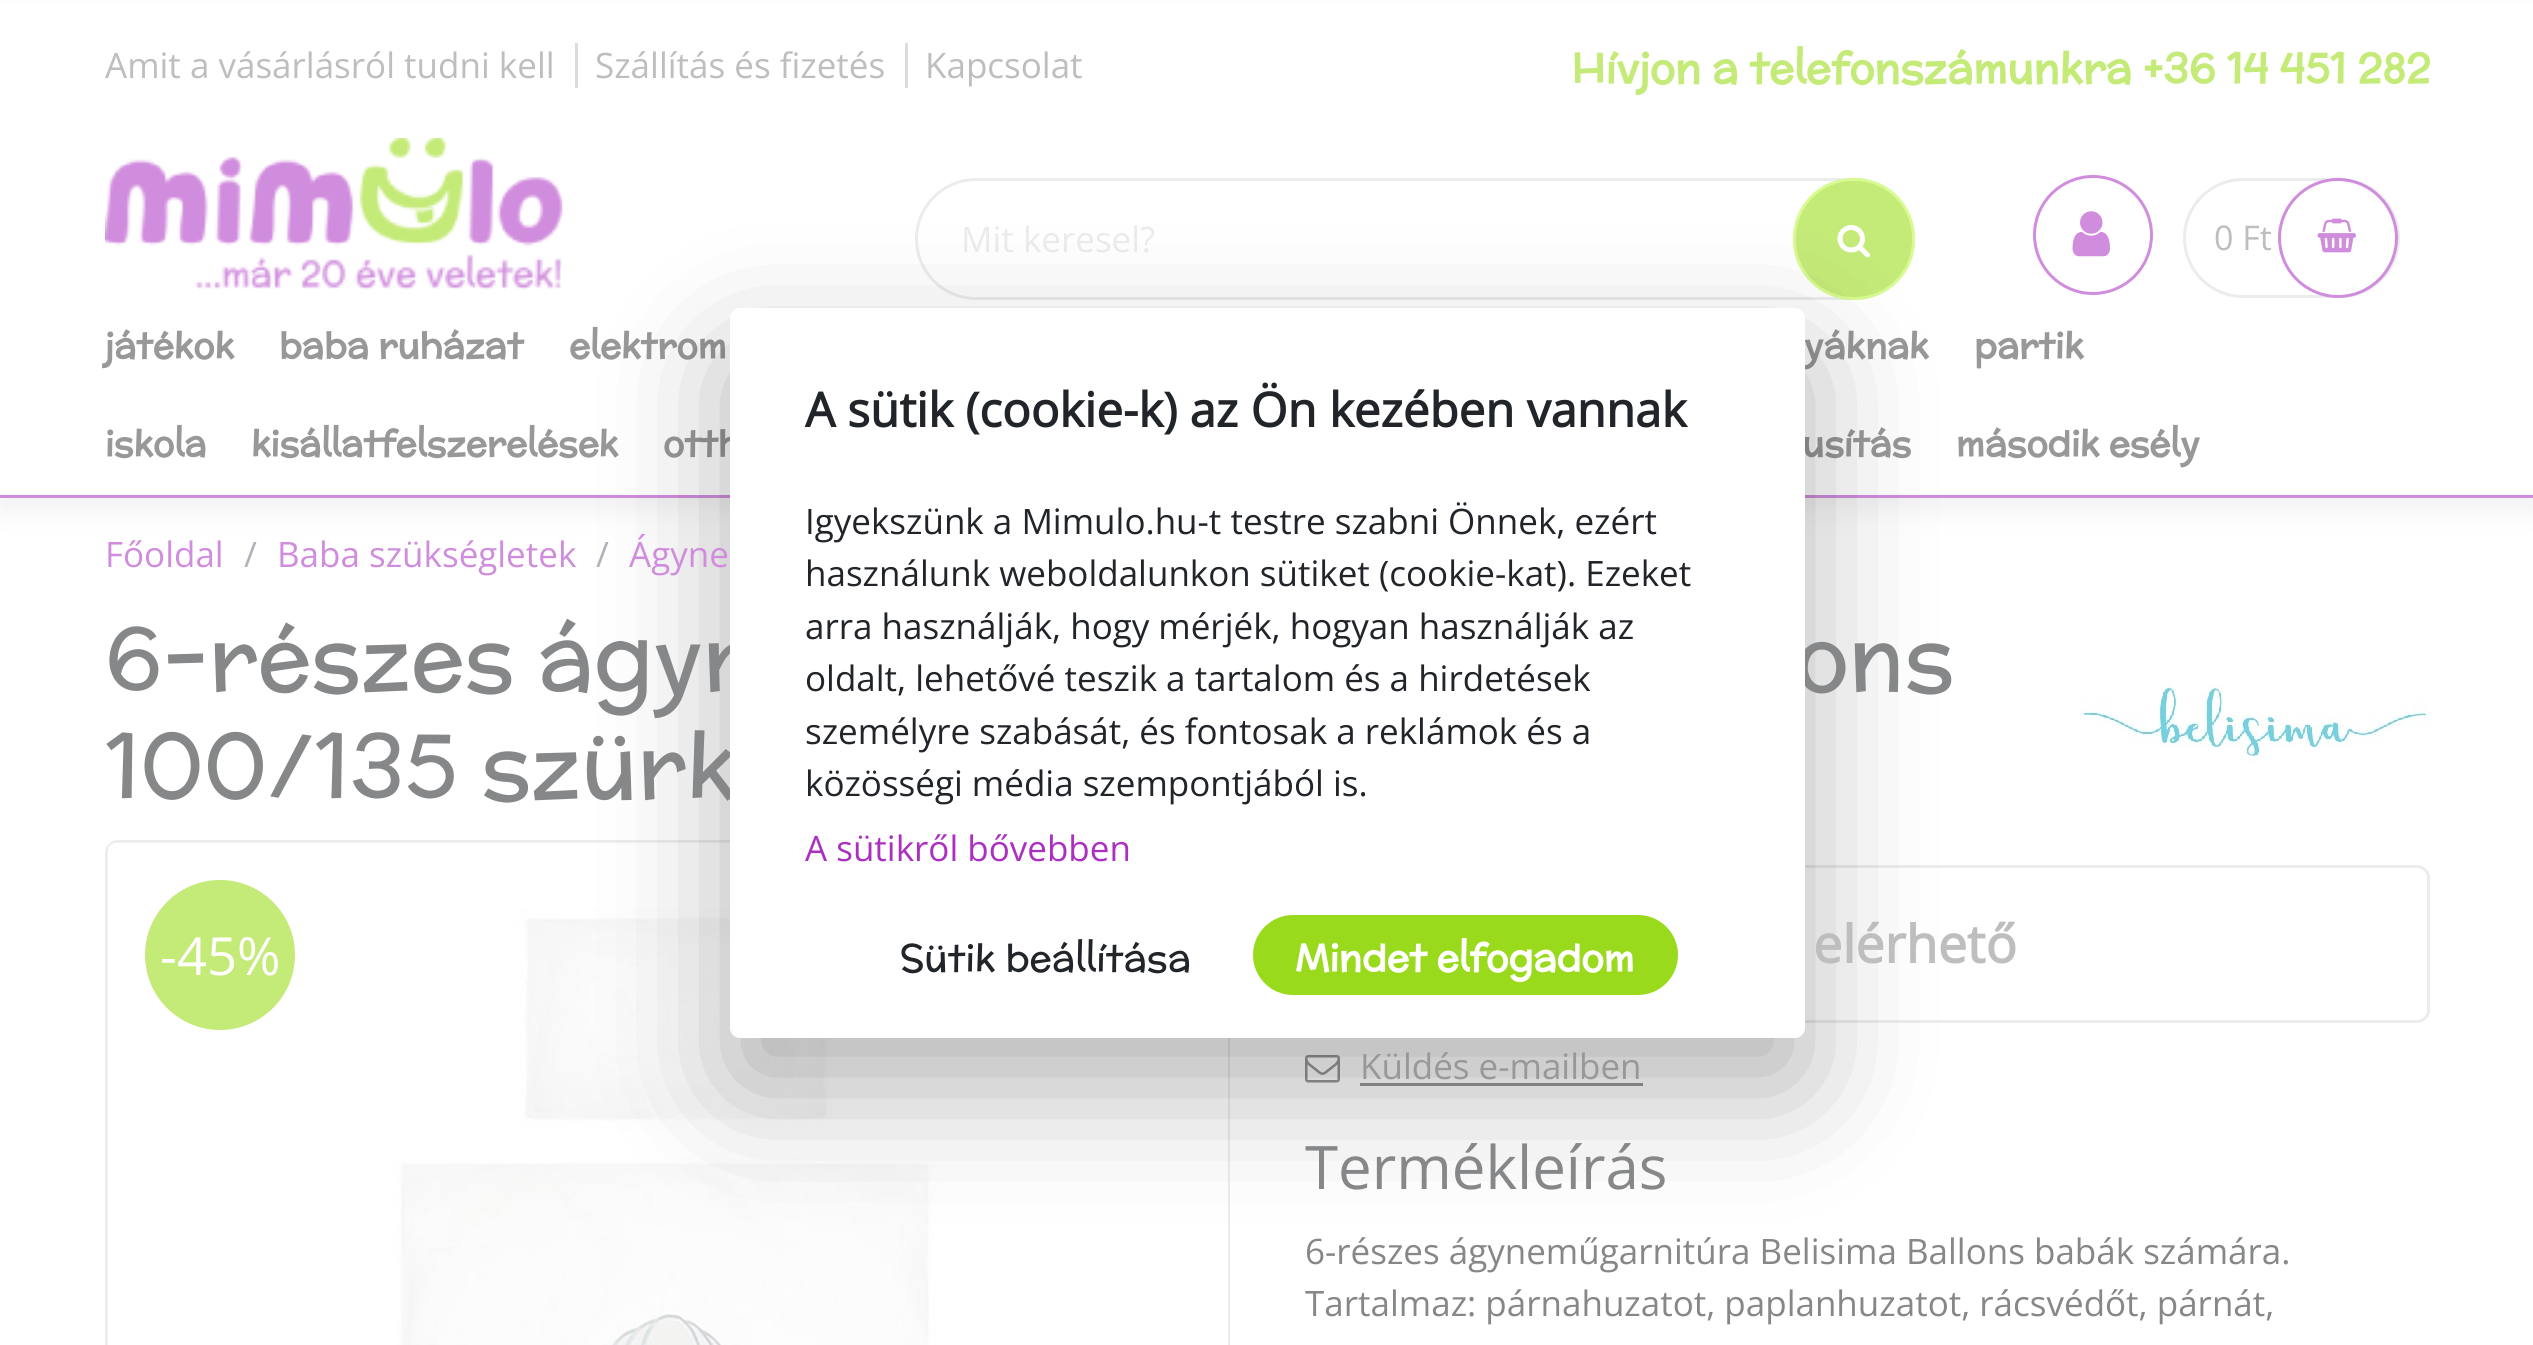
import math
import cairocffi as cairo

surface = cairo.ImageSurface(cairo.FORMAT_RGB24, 2533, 1345)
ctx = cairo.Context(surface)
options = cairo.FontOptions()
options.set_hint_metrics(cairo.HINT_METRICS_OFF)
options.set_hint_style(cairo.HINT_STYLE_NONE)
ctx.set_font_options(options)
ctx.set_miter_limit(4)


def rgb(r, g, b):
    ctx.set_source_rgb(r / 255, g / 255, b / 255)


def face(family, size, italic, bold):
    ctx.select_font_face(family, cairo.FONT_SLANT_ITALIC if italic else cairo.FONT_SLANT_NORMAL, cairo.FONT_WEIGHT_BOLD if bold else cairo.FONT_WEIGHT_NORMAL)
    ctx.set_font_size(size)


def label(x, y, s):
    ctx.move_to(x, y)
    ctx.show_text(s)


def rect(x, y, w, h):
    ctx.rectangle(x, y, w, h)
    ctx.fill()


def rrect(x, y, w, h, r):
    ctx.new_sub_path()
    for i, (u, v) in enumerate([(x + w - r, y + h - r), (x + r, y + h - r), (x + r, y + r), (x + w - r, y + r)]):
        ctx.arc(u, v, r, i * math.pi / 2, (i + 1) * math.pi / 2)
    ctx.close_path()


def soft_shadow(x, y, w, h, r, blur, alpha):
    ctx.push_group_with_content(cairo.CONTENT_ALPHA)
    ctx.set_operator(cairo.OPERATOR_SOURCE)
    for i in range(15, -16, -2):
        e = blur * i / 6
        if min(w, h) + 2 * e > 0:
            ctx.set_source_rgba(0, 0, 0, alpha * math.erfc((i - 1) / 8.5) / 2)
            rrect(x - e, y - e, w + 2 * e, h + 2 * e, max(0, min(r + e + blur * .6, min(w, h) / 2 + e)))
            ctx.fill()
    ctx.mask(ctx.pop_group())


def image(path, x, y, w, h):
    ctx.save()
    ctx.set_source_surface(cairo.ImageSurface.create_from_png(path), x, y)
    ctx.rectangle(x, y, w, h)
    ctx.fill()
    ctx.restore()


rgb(255, 255, 255)
ctx.paint()
rgb(236, 236, 236)
soft_shadow(0, 13, 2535, 497, 0, 12.5, 0.73)
rgb(255, 255, 255)
rect(0, 2, 2533, 493)
rgb(209, 141, 221)
rect(0, 495, 2533, 3)
face('Open Sans', 35, 0, 0)
rgb(190, 190, 190)
label(105, 78, 'Amit a vásárlásról tudni kell')
rgb(220, 220, 220)
rect(575, 43, 3, 45)
rgb(190, 190, 190)
label(595, 78, 'Szállítás és fizetés')
rgb(220, 220, 220)
rect(905, 43, 3, 45)
rgb(190, 190, 190)
label(925, 78, 'Kapcsolat')
face('McLaren', 42, 0, 1)
rgb(196, 234, 120)
label(1571, 83, 'Hívjon a telefonszámunkra +36 14 451 282')
image('image0.png', 105, 138, 458, 152)
rrect(916.5, 179.5, 997, 119, 59.5)
rgb(236, 236, 236)
ctx.set_line_width(3)
ctx.stroke()
face('Open Sans', 35, 0, 0)
label(961, 252, 'Mit keresel?')
rgb(196, 234, 120)
rrect(1794.5, 179.5, 119, 119, 58.5)
ctx.fill_preserve()
rgb(216, 251, 145)
ctx.stroke()
image('image1.png', 1837, 225, 33, 33)
ctx.arc(2093, 235, 58.5, 0, 2 * math.pi)
rgb(209, 141, 221)
ctx.stroke()
image('image2.png', 2072, 211, 38, 46)
rrect(2184.5, 179.5, 214, 117, 58.5)
rgb(236, 236, 236)
ctx.stroke()
face('Open Sans', 34, 0, 0)
rgb(190, 190, 190)
label(2214, 250, '0 Ft')
rgb(255, 255, 255)
ctx.new_path()
ctx.arc(2338, 238, 58.5, 0, 2 * math.pi)
ctx.fill_preserve()
rgb(209, 141, 221)
ctx.stroke()
image('image3.png', 2317, 218, 40, 35)
face('McLaren', 35.4, 0, 1)
rgb(152, 152, 152)
label(105, 358, 'játékok')
label(279, 358, 'baba ruházat')
label(569, 358, 'elektrom')
label(1804, 358, 'yáknak')
label(1974, 358, 'partik')
label(105, 456, 'iskola')
label(251, 456, 'kisállatfelszerelések')
label(663, 456, 'otth')
label(1802, 456, 'usítás')
label(1956, 456, 'második esély')
rrect(106.5, 841.5, 1122, 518, 11.5)
rgb(236, 236, 236)
ctx.stroke()
rgb(255, 255, 255)
rrect(108, 843, 1120, 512, 10)
ctx.fill()
image('image5.png', 107, 842, 1120, 503)
rrect(1306.5, 866.5, 1122, 155, 11.5)
rgb(236, 236, 236)
ctx.stroke()
image('image6.png', 1305, 1055, 35, 28)
rgb(152, 152, 152)
rect(1360, 1083, 283, 3)
rgb(0, 0, 0)
soft_shadow(730, 358, 1075, 730, 10, 62.5, 0.3)
face('McLaren', 90, 0, 0)
rgb(133, 135, 137)
label(105, 689, '6-részes ágyn')
label(1795, 689, 'ons')
label(105, 797, '100/135 szürk')
rgb(255, 255, 255)
rrect(730, 308, 1075, 730, 10)
ctx.fill()
face('Open Sans', 47.5, 0, 1)
rgb(33, 37, 41)
label(805, 427, 'A sütik (cookie-k) az Ön kezében vannak')
face('Open Sans', 35, 0, 0)
label(805, 534, 'Igyekszünk a Mimulo.hu-t testre szabni Önnek, ezért')
label(805, 586, 'használunk weboldalunkon sütiket (cookie-kat). Ezeket')
label(805, 639, 'arra használják, hogy mérjék, hogyan használják az')
label(805, 691, 'oldalt, lehetővé teszik a tartalom és a hirdetések')
label(805, 744, 'személyre szabását, és fontosak a reklámok és a')
label(805, 796, 'közösségi média szempontjából is.')
rgb(171, 48, 193)
label(805, 861, 'A sütikről bővebben')
face('McLaren', 37.5, 0, 0)
rgb(33, 37, 41)
label(900, 971, 'Sütik beállítása')
rgb(154, 218, 28)
rrect(1254.5, 916.5, 422, 77, 38.5)
ctx.fill_preserve()
ctx.stroke()
face('McLaren', 37.5, 0, 1)
rgb(255, 255, 255)
label(1295, 971, 'Mindet elfogadom')
face('Open Sans', 35, 0, 0)
rgb(209, 141, 221)
label(105, 567, 'Főoldal')
rgb(174, 179, 184)
label(244, 567, '/')
rgb(209, 141, 221)
label(277, 567, 'Baba szükségletek')
rgb(174, 179, 184)
label(596, 567, '/')
rgb(209, 141, 221)
label(629, 567, 'Ágyne')
image('image4.png', 2080, 683, 350, 80)
rgb(196, 234, 120)
ctx.arc(220, 955, 75, 0, 2 * math.pi)
ctx.fill()
face('Open Sans', 52.5, 0, 0)
rgb(255, 255, 255)
label(160, 975, '-45%')
face('Open Sans', 52, 0, 1)
rgb(190, 190, 190)
label(1813, 963, 'elérhető')
face('Open Sans', 35, 0, 0)
rgb(152, 152, 152)
label(1360, 1079, 'Küldés e-mailben')
face('Open Sans', 60, 0, 0)
rgb(133, 135, 137)
label(1305, 1189, 'Termékleírás')
face('Open Sans', 35, 0, 0)
label(1305, 1264, '6-részes ágyneműgarnitúra Belisima Ballons babák számára.')
label(1305, 1316, 'Tartalmaz: párnahuzatot, paplanhuzatot, rácsvédőt, párnát,')
surface.write_to_png('render.png')
